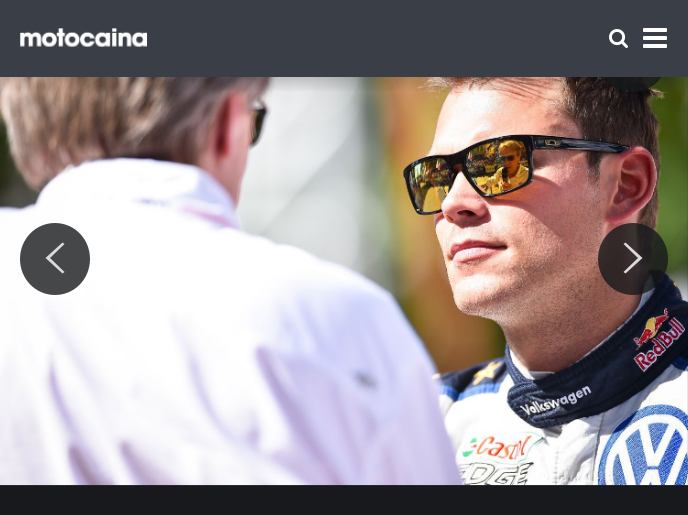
import math
import cairocffi as cairo

surface = cairo.ImageSurface(cairo.FORMAT_RGB24, 688, 515)
ctx = cairo.Context(surface)
options = cairo.FontOptions()
options.set_hint_metrics(cairo.HINT_METRICS_OFF)
options.set_hint_style(cairo.HINT_STYLE_NONE)
ctx.set_font_options(options)
ctx.set_miter_limit(4)


def rgb(r, g, b):
    ctx.set_source_rgb(r / 255, g / 255, b / 255)


def rect(x, y, w, h):
    ctx.rectangle(x, y, w, h)
    ctx.fill()


def image(path, x, y, w, h):
    ctx.save()
    ctx.set_source_surface(cairo.ImageSurface.create_from_png(path), x, y)
    ctx.rectangle(x, y, w, h)
    ctx.fill()
    ctx.restore()


rgb(23, 25, 29)
ctx.paint()
image('image3.png', 0, 77, 688, 409)
gradient = cairo.LinearGradient(344, 0, 344, 116)
gradient.add_color_stop_rgba(0, 0, 0, 0, 0.55)
gradient.add_color_stop_rgba(0.22, 0, 0, 0, 0.65)
gradient.add_color_stop_rgba(0.8, 0, 0, 0, 0)
ctx.set_source(gradient)
rect(0, 77, 688, 14)
ctx.set_source_rgba(0.09, 0.098, 0.11, 0.8)
ctx.new_path()
ctx.move_to(633, 20)
ctx.curve_to(652.5, 20, 668, 36, 668, 56)
ctx.curve_to(668, 76, 652.5, 92, 633, 92)
ctx.curve_to(613.5, 92, 598, 76, 598, 56)
ctx.curve_to(598, 36, 613.5, 20, 633, 20)
ctx.close_path()
ctx.fill()
rgb(58, 63, 71)
rect(0, 0, 688, 77)
image('image0.png', 20, 28, 127, 19)
image('image1.png', 609, 29, 19, 19)
image('image2.png', 643, 28, 24, 20)
rgb(69, 71, 73)
ctx.new_path()
ctx.move_to(55, 223)
ctx.curve_to(74.5, 223, 90, 239, 90, 259)
ctx.curve_to(90, 279, 74.5, 295, 55, 295)
ctx.curve_to(35.5, 295, 20, 279, 20, 259)
ctx.curve_to(20, 239, 35.5, 223, 55, 223)
ctx.close_path()
ctx.fill()
rgb(221, 218, 220)
ctx.set_fill_rule(cairo.FILL_RULE_EVEN_ODD)
ctx.new_path()
ctx.move_to(64.5, 244)
ctx.line_to(50, 258)
ctx.line_to(64.5, 272)
ctx.line_to(62.5, 273.5)
ctx.line_to(45.5, 258)
ctx.line_to(62.5, 242.5)
ctx.close_path()
ctx.fill()
ctx.set_source_rgba(0.09, 0.098, 0.11, 0.8)
ctx.new_path()
ctx.move_to(633, 223)
ctx.curve_to(652.5, 223, 668, 239, 668, 259)
ctx.curve_to(668, 279, 652.5, 295, 633, 295)
ctx.curve_to(613.5, 295, 598, 279, 598, 259)
ctx.curve_to(598, 239, 613.5, 223, 633, 223)
ctx.close_path()
ctx.fill()
rgb(221, 218, 220)
ctx.new_path()
ctx.move_to(623.5, 244)
ctx.line_to(625.5, 242.5)
ctx.line_to(642.5, 258)
ctx.line_to(625.5, 273.5)
ctx.line_to(623.5, 272)
ctx.line_to(638, 258)
ctx.close_path()
ctx.fill()
surface.write_to_png('render.png')
